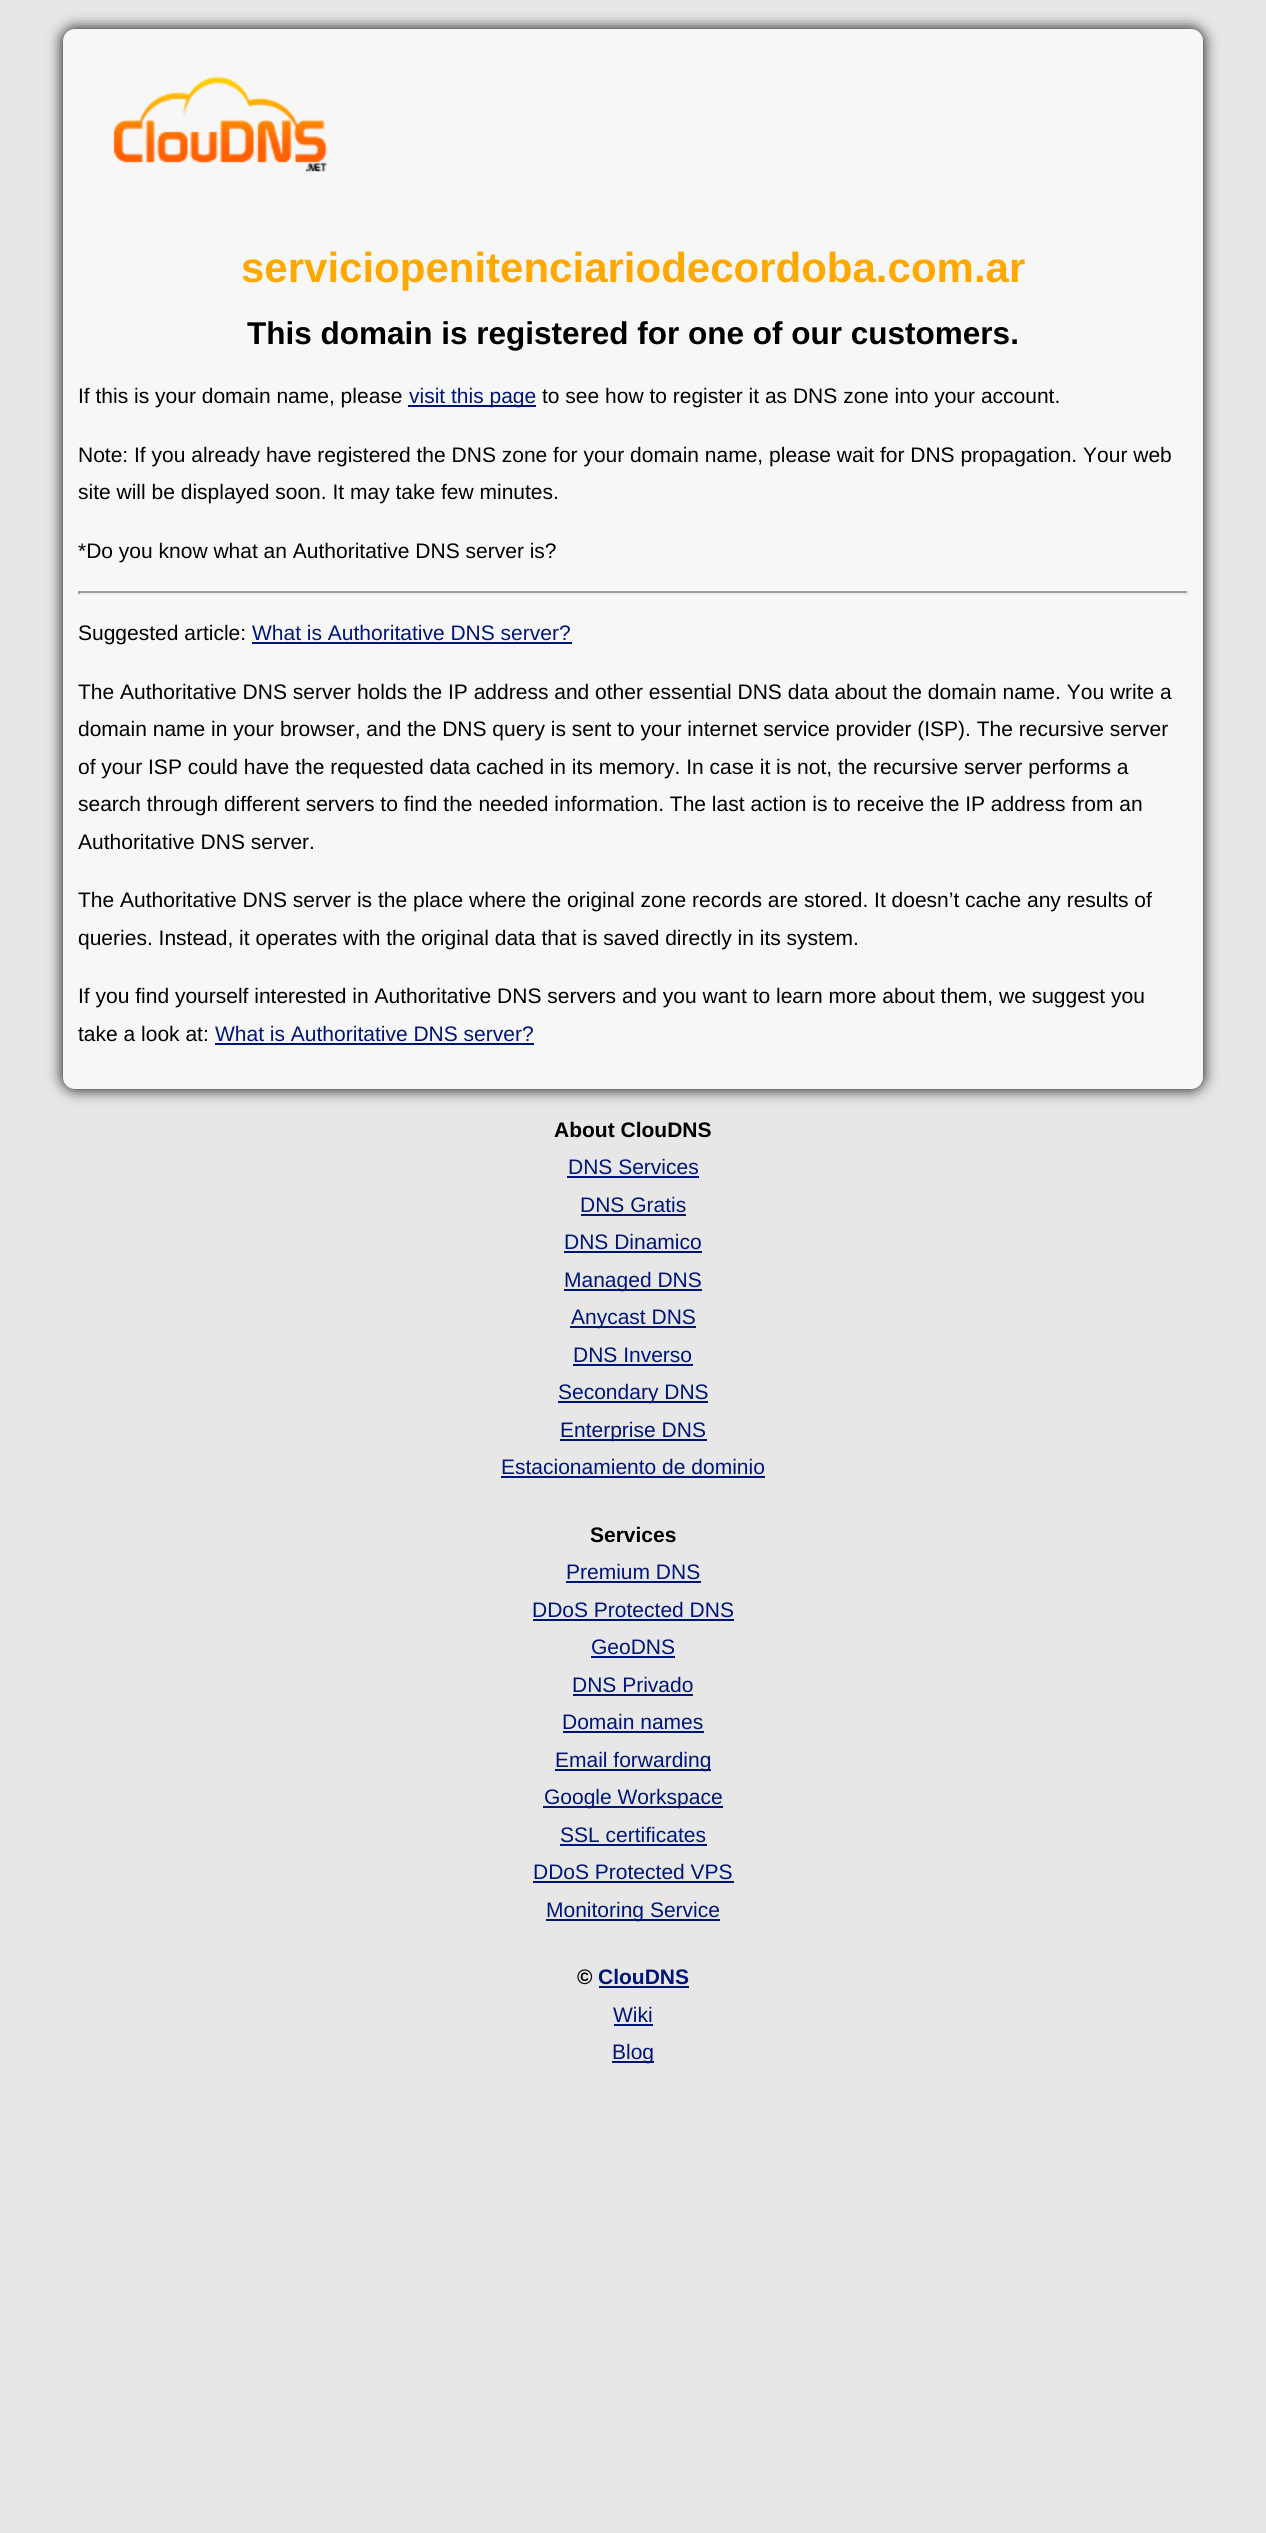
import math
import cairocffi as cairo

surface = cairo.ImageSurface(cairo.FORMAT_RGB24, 1266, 2533)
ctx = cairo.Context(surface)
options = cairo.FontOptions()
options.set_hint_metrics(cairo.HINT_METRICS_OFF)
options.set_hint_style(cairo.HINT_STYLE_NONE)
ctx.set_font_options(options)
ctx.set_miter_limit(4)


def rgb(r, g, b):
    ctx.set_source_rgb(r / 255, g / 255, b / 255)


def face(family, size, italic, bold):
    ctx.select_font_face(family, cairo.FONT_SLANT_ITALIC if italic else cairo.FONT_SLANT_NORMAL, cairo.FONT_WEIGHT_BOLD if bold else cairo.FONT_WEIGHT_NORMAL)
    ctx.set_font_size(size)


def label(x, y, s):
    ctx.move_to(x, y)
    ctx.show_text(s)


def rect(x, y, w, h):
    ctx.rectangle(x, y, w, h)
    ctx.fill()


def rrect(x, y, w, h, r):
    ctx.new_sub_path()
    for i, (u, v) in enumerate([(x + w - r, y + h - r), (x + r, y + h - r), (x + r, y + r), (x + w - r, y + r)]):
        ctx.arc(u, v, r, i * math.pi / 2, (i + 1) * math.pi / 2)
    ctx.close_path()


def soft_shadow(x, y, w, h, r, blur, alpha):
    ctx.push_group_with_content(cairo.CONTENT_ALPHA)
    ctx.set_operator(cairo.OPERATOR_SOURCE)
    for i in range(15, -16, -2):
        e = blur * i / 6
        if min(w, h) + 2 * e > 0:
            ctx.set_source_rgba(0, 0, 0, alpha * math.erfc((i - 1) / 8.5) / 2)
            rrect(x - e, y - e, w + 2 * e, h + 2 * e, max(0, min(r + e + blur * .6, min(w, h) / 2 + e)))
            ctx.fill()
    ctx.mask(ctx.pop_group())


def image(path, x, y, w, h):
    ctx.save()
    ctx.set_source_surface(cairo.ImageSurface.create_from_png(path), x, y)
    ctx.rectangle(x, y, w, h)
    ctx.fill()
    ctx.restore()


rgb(231, 231, 231)
ctx.paint()
rgb(0, 0, 0)
soft_shadow(63, 29, 1140, 1060, 12, 7.5, 1)
rgb(247, 247, 247)
rrect(63, 29, 1140, 1060, 12)
ctx.fill()
image('image0.png', 113, 76, 215, 96)
face('Liberation Sans', 42, 0, 1)
rgb(255, 169, 0)
label(241, 282, 'serviciopenitenciariodecordoba.com.ar')
face('Liberation Sans', 31.5, 0, 1)
rgb(0, 0, 0)
label(247, 344, 'This domain is registered for one of our customers.')
face('Liberation Sans', 21, 0, 0)
label(78, 403, 'If this is your domain name, please')
rgb(0, 22, 119)
rect(408, 405, 128, 2)
label(409, 403, 'visit this page')
rgb(0, 0, 0)
label(542, 403, 'to see how to register it as DNS zone into your account.')
label(78, 462, 'Note: If you already have registered the DNS zone for your domain name, please wait for DNS propagation. Your web')
label(78, 499, 'site will be displayed soon. It may take few minutes.')
label(78, 558, '*Do you know what an Authoritative DNS server is?')
rgb(159, 159, 159)
rect(78, 591, 1110, 2)
rgb(238, 238, 238)
rect(1187, 591, 2, 3)
rect(78, 593, 1110, 2)
rgb(159, 159, 159)
rect(78, 591, 2, 3)
rgb(0, 0, 0)
label(78, 640, 'Suggested article:')
rgb(0, 22, 119)
label(252, 640, 'What is Authoritative DNS server?')
rect(252, 642, 320, 2)
rgb(0, 0, 0)
label(78, 699, 'The Authoritative DNS server holds the IP address and other essential DNS data about the domain name. You write a')
label(78, 736, 'domain name in your browser, and the DNS query is sent to your internet service provider (ISP). The recursive server')
label(78, 774, 'of your ISP could have the requested data cached in its memory. In case it is not, the recursive server performs a')
label(78, 811, 'search through different servers to find the needed information. The last action is to receive the IP address from an')
label(78, 849, 'Authoritative DNS server.')
label(78, 907, 'The Authoritative DNS server is the place where the original zone records are stored. It doesn’t cache any results of')
label(78, 945, 'queries. Instead, it operates with the original data that is saved directly in its system.')
label(78, 1003, 'If you find yourself interested in Authoritative DNS servers and you want to learn more about them, we suggest you')
label(78, 1041, 'take a look at:')
rgb(0, 22, 119)
label(215, 1041, 'What is Authoritative DNS server?')
rect(215, 1043, 319, 2)
face('Liberation Sans', 21, 0, 1)
rgb(0, 0, 0)
label(554, 1137, 'About ClouDNS')
face('Liberation Sans', 21, 0, 0)
rgb(0, 22, 119)
label(568, 1174, 'DNS Services')
rect(567, 1176, 132, 2)
label(580, 1212, 'DNS Gratis')
rect(581, 1214, 105, 2)
label(564, 1249, 'DNS Dinamico')
rect(564, 1251, 138, 2)
rect(564, 1289, 138, 2)
label(564, 1287, 'Managed DNS')
rect(570, 1326, 126, 2)
label(571, 1324, 'Anycast DNS')
label(573, 1362, 'DNS Inverso')
rect(573, 1364, 120, 2)
rect(558, 1401, 150, 2)
label(558, 1399, 'Secondary DNS')
rect(560, 1439, 147, 2)
label(560, 1437, 'Enterprise DNS')
label(501, 1474, 'Estacionamiento de dominio')
rect(501, 1476, 264, 2)
face('Liberation Sans', 21, 0, 1)
rgb(0, 0, 0)
label(590, 1542, 'Services')
face('Liberation Sans', 21, 0, 0)
rgb(0, 22, 119)
label(566, 1579, 'Premium DNS')
rect(566, 1581, 135, 2)
label(532, 1617, 'DDoS Protected DNS')
rect(533, 1619, 201, 2)
label(591, 1654, 'GeoDNS')
rect(591, 1656, 84, 2)
label(572, 1692, 'DNS Privado')
rect(573, 1694, 120, 2)
label(562, 1729, 'Domain names')
rect(563, 1731, 141, 2)
rect(555, 1769, 156, 2)
label(555, 1767, 'Email forwarding')
rect(543, 1806, 180, 2)
label(544, 1804, 'Google Workspace')
label(560, 1842, 'SSL certificates')
rect(560, 1844, 147, 2)
label(533, 1879, 'DDoS Protected VPS')
rect(533, 1881, 201, 2)
rect(546, 1919, 174, 2)
label(546, 1917, 'Monitoring Service')
face('Liberation Sans', 21, 0, 1)
rgb(0, 0, 0)
label(577, 1984, '©')
rgb(0, 22, 119)
label(598, 1984, 'ClouDNS')
rect(599, 1986, 90, 2)
face('Liberation Sans', 21, 0, 0)
label(613, 2022, 'Wiki')
rect(614, 2024, 39, 2)
rect(612, 2061, 42, 2)
label(612, 2059, 'Blog')
surface.write_to_png('render.png')
